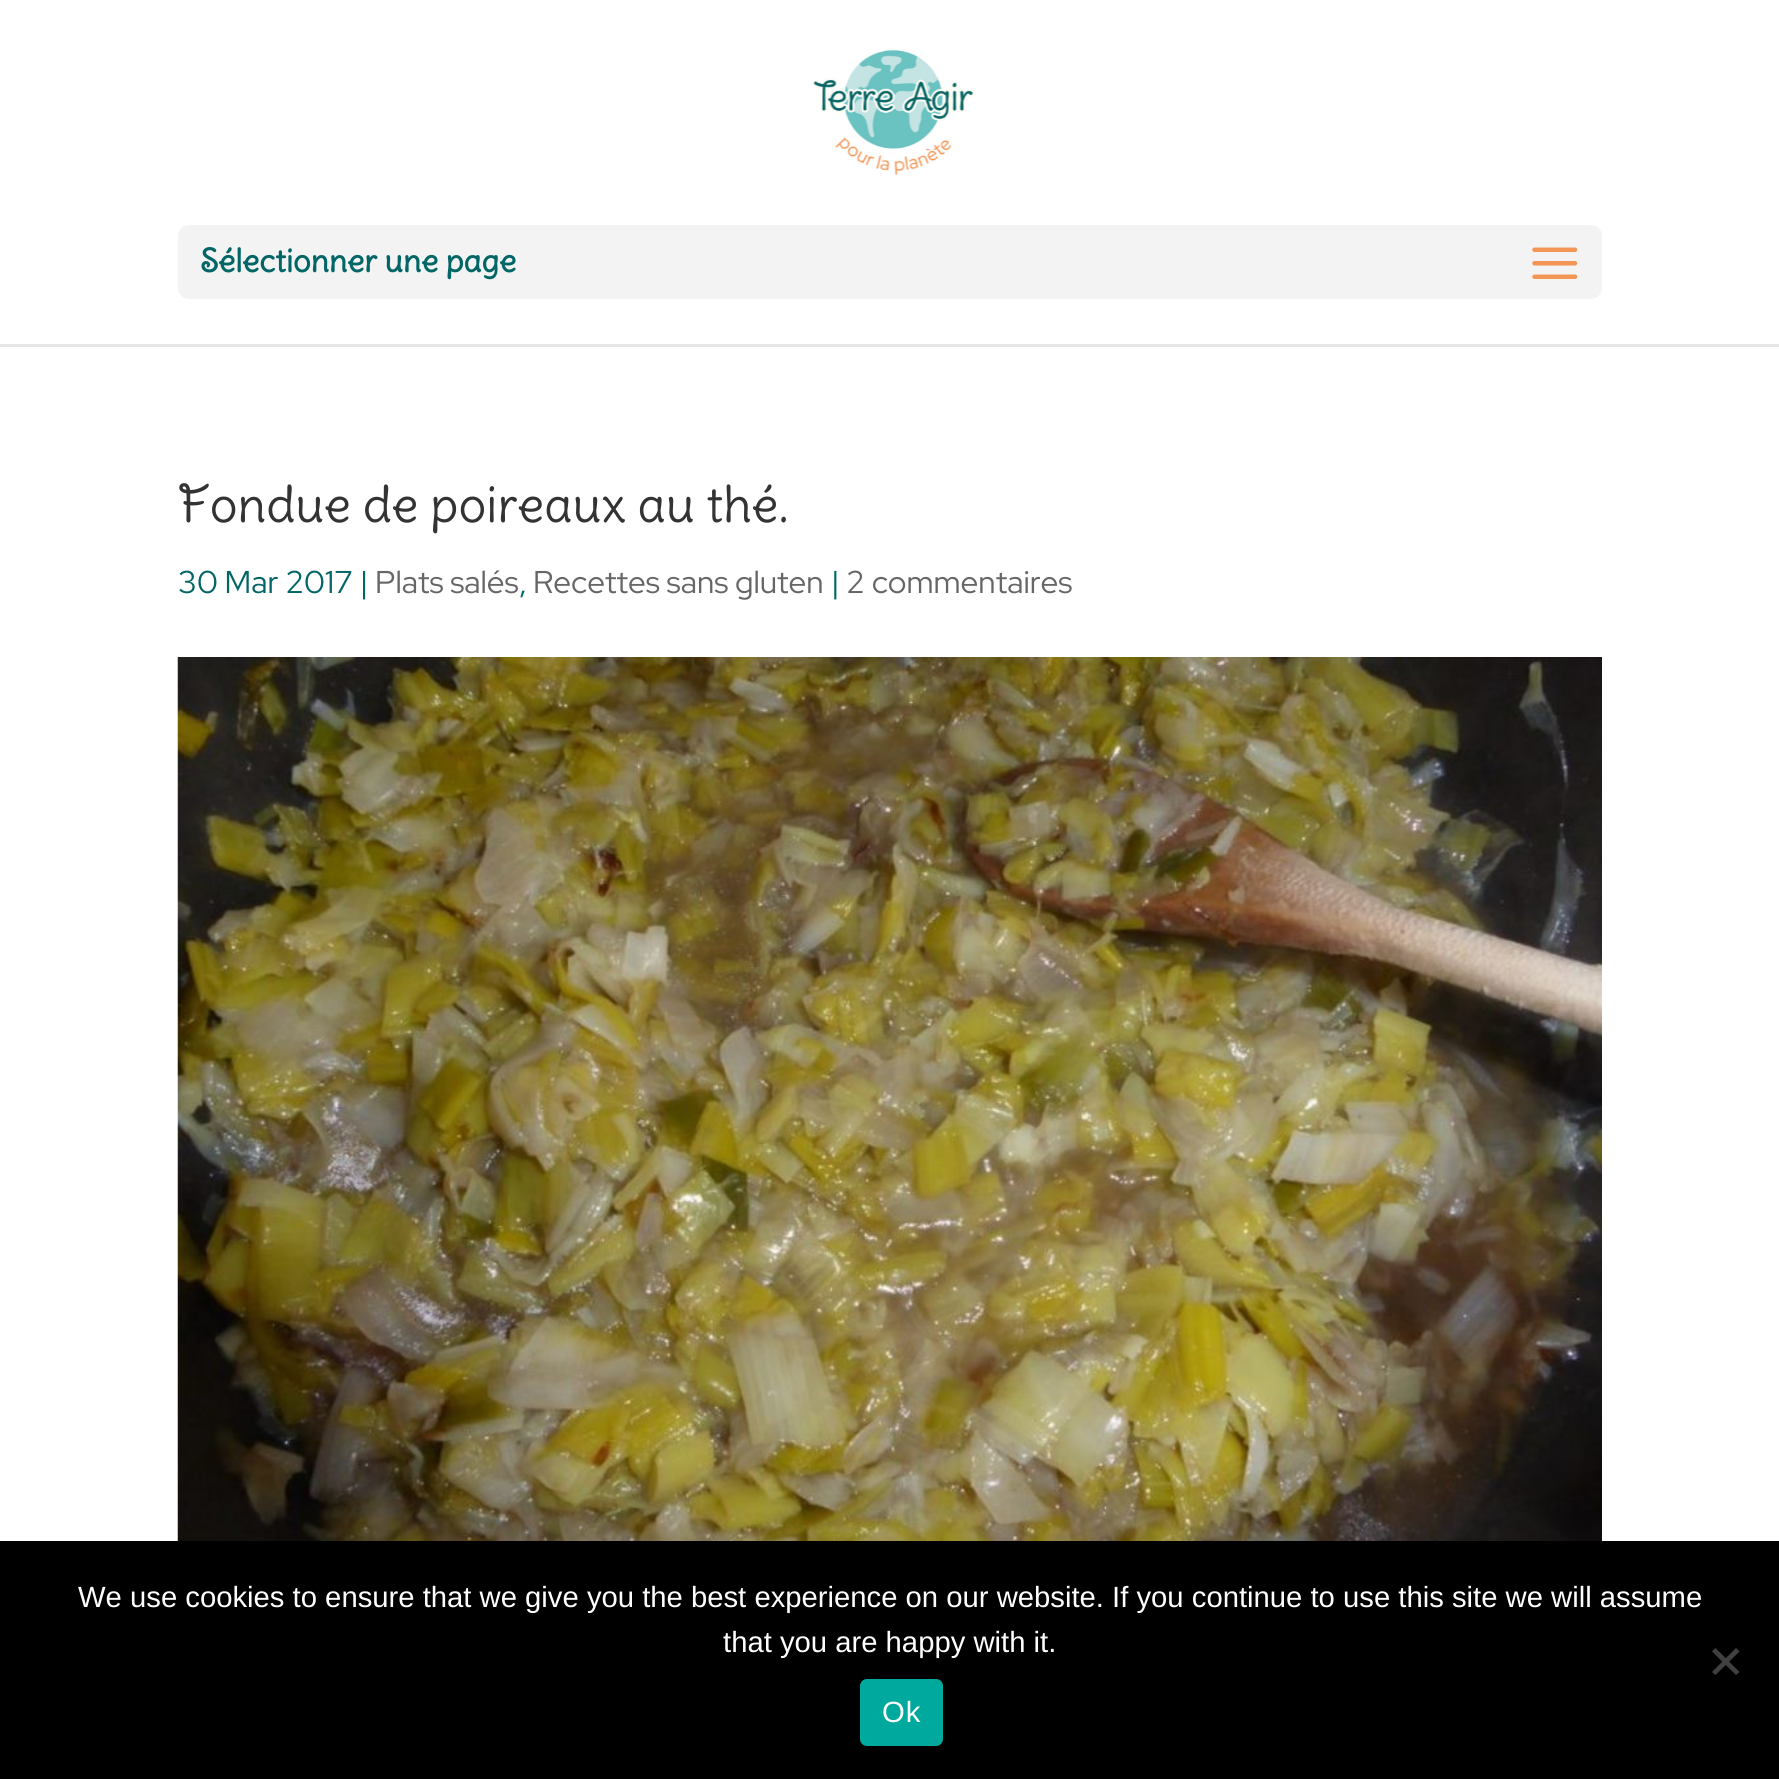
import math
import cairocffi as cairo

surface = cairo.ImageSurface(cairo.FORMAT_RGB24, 1779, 1779)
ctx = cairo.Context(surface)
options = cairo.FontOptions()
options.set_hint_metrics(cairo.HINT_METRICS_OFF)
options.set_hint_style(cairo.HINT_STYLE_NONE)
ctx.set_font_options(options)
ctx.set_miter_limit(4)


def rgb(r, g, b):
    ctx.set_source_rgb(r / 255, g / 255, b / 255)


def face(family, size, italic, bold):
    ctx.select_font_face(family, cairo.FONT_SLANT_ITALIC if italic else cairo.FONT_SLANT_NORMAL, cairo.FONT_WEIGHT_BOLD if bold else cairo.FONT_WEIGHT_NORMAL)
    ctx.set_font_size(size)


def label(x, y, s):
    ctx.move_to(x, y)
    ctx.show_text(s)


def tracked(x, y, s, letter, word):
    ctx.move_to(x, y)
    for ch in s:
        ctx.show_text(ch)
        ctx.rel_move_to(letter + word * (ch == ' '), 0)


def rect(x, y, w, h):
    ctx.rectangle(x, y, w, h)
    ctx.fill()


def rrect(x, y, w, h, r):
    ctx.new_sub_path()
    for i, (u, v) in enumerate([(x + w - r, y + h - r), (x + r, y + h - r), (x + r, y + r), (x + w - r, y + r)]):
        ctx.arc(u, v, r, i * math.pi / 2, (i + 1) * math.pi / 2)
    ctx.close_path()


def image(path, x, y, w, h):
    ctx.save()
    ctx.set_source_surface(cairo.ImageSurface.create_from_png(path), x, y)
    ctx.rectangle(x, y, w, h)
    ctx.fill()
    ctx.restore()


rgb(255, 255, 255)
ctx.paint()
rgb(230, 230, 230)
ctx.new_path()
ctx.move_to(0, 344)
ctx.line_to(0, 347)
ctx.line_to(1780, 347)
ctx.line_to(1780, 2)
ctx.line_to(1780, 344)
ctx.close_path()
ctx.fill()
image('image0.png', 812, 49, 163, 126)
rgb(243, 243, 243)
rrect(178, 225, 1424, 74, 11)
ctx.fill()
face('Delius Swash Caps', 31.5, 0, 1)
rgb(2, 102, 102)
label(200, 272, 'Sélectionner une page')
image('image1.png', 1532, 247, 46, 32)
face('Delius Swash Caps', 49.5, 0, 0)
rgb(51, 51, 51)
label(178, 522, 'Fondue de poireaux au thé.')
face('Red Hat Display', 31.5, 0, 0)
rgb(2, 102, 102)
label(178, 593, '30 Mar 2017 |')
rgb(102, 102, 102)
label(375, 593, 'Plats salés')
rgb(2, 102, 102)
label(519, 593, ',')
rgb(102, 102, 102)
label(533, 593, 'Recettes sans gluten')
rgb(2, 102, 102)
label(831, 593, '|')
rgb(102, 102, 102)
label(846, 593, '2 commentaires')
image('image2.png', 177, 657, 1425, 884)
rgb(0, 0, 0)
rect(0, 1541, 1779, 238)
face('Liberation Sans', 29.25, 0, 0)
rgb(255, 255, 255)
label(78, 1607, 'We use cookies to ensure that we give you the best experience on our website. If you continue to use this site we will assume')
label(723, 1652, 'that you are happy with it.')
rgb(64, 64, 64)
ctx.new_path()
ctx.move_to(1736, 1648)
ctx.line_to(1739.5, 1651.5)
ctx.line_to(1715.5, 1675)
ctx.line_to(1712, 1672)
ctx.close_path()
ctx.fill()
ctx.new_path()
ctx.move_to(1712, 1651.5)
ctx.line_to(1715.5, 1648)
ctx.line_to(1739.5, 1672)
ctx.line_to(1736, 1675)
ctx.close_path()
ctx.fill()
rgb(0, 169, 157)
rrect(860, 1679, 83, 67, 7)
ctx.fill()
rgb(255, 255, 255)
tracked(882, 1722, 'Ok', 1, 0)
surface.write_to_png('render.png')
